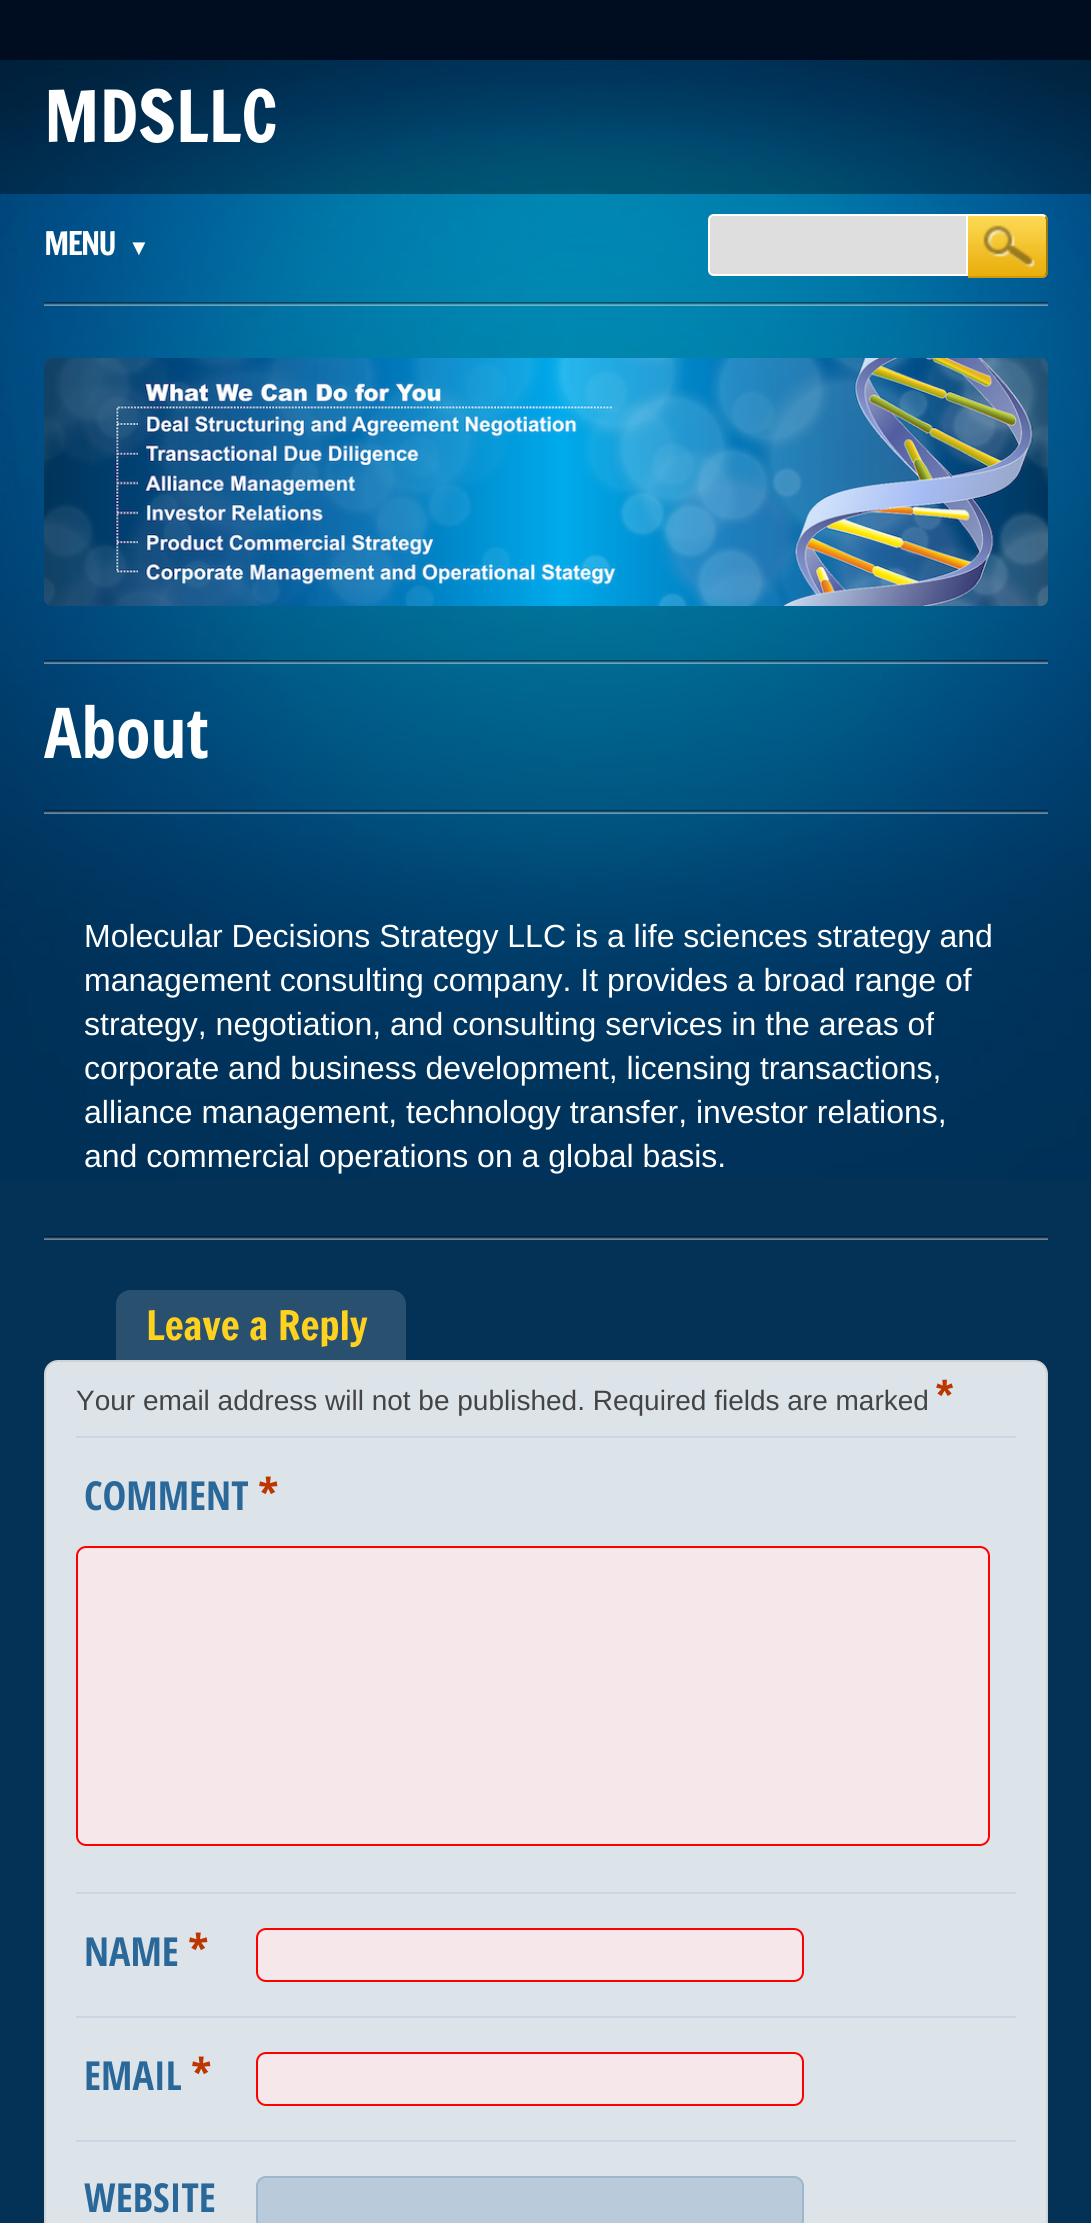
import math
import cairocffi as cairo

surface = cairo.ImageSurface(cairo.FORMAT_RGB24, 1091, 2223)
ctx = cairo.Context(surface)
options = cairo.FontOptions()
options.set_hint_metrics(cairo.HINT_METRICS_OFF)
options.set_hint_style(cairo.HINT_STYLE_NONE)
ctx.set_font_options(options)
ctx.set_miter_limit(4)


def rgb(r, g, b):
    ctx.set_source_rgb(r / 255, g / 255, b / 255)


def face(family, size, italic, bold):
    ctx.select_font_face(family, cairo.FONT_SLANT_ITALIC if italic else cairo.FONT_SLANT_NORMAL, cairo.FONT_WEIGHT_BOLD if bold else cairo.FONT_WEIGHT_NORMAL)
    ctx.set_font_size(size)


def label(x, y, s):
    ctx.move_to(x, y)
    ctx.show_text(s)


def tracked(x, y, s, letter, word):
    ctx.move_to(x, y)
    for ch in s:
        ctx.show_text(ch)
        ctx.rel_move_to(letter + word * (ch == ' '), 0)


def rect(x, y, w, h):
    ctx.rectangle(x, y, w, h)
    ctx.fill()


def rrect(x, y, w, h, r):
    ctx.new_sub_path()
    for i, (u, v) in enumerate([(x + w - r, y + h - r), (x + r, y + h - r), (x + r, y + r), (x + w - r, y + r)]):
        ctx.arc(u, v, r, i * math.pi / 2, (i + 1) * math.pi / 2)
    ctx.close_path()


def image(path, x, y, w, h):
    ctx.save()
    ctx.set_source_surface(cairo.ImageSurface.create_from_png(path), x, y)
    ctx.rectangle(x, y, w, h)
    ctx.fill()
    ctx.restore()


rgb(0, 13, 33)
ctx.paint()
rgb(4, 49, 86)
rect(0, 1179, 1091, 1044)
image('image0.png', 0, 60, 1091, 1119)
ctx.set_source_rgba(0, 0, 0, 0.35)
rect(0, 60, 1091, 134)
face('Francois One', 70, 0, 0)
rgb(255, 255, 255)
label(44, 142, 'MDSLLC')
face('Francois One', 32, 0, 0)
tracked(44, 255, 'MENU', -2, 0)
face('Liberation Sans', 22, 0, 0)
tracked(128, 255, '▼', -2, 0)
rgb(222, 222, 222)
ctx.new_path()
ctx.move_to(714, 215)
ctx.line_to(967, 215)
ctx.line_to(967, 275)
ctx.line_to(714, 275)
ctx.curve_to(711, 275, 709, 273, 709, 270)
ctx.line_to(709, 220)
ctx.curve_to(709, 217, 711, 215, 714, 215)
ctx.close_path()
ctx.fill_preserve()
rgb(255, 255, 255)
ctx.stroke()
image('image1.png', 968, 214, 80, 64)
ctx.new_path()
ctx.move_to(968, 214)
ctx.line_to(968, 216)
ctx.line_to(1042, 216)
ctx.line_to(1045, 217)
ctx.line_to(1046, 216)
ctx.curve_to(1045, 215, 1044, 214, 1042, 214)
ctx.close_path()
ctx.fill()
rgb(156, 121, 20)
ctx.new_path()
ctx.move_to(1045, 275)
ctx.line_to(1046, 272)
ctx.line_to(1046, 220)
ctx.line_to(1045, 217)
ctx.line_to(1046, 216)
ctx.curve_to(1047, 217, 1048, 218, 1048, 220)
ctx.line_to(1048, 272)
ctx.curve_to(1048, 274, 1047, 275, 1046, 276)
ctx.close_path()
ctx.fill()
rgb(208, 153, 7)
ctx.new_path()
ctx.move_to(968, 276)
ctx.line_to(968, 278)
ctx.line_to(1043, 278)
ctx.line_to(1046, 276)
ctx.line_to(1045, 275)
ctx.line_to(1042, 276)
ctx.close_path()
ctx.fill()
image('image2.png', 44, 302, 1004, 4)
image('image3.png', 44, 358, 1004, 248)
image('image4.png', 44, 660, 1004, 4)
image('image5.png', 44, 810, 1004, 4)
face('Open Sans Condensed', 70, 0, 1)
rgb(255, 255, 255)
label(44, 758, 'About')
image('image6.png', 44, 1236, 1004, 4)
face('Liberation Sans', 32, 0, 0)
label(84, 947, 'Molecular Decisions Strategy LLC is a life sciences strategy and')
label(84, 991, 'management consulting company. It provides a broad range of')
label(84, 1035, 'strategy, negotiation, and consulting services in the areas of')
label(84, 1079, 'corporate and business development, licensing transactions,')
label(84, 1123, 'alliance management, technology transfer, investor relations,')
label(84, 1167, 'and commercial operations on a global basis.')
rgb(220, 228, 234)
rrect(45, 1361, 1002, 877, 13)
ctx.fill_preserve()
rgb(207, 211, 214)
ctx.stroke()
rgb(41, 80, 111)
ctx.new_path()
ctx.move_to(130, 1290)
ctx.line_to(392, 1290)
ctx.curve_to(399.5, 1290, 406, 1296.5, 406, 1304)
ctx.line_to(406, 1360)
ctx.line_to(116, 1360)
ctx.line_to(116, 1304)
ctx.curve_to(116, 1296.5, 122.5, 1290, 130, 1290)
ctx.close_path()
ctx.fill()
face('Francois One', 40, 0, 0)
rgb(255, 210, 31)
label(146, 1340, 'Leave a Reply')
rgb(202, 215, 226)
rect(76, 1436, 940, 2)
face('Liberation Sans', 28, 0, 0)
rgb(68, 68, 68)
label(76, 1410, 'Your email address will not be published. Required fields are marked')
face('Liberation Sans', 44, 0, 1)
rgb(189, 53, 0)
label(936, 1410, '*')
rgb(202, 215, 226)
rect(76, 1892, 940, 2)
face('Open Sans Condensed', 40, 0, 1)
rgb(43, 104, 154)
label(84, 1510, 'COMMENT')
face('Open Sans Condensed', 44, 0, 1)
rgb(189, 53, 0)
label(258, 1510, '*')
rgb(246, 231, 235)
rrect(77, 1547, 912, 298, 9)
ctx.fill_preserve()
rgb(255, 0, 0)
ctx.stroke()
rgb(202, 215, 226)
rect(76, 2016, 940, 2)
face('Open Sans Condensed', 40, 0, 1)
rgb(43, 104, 154)
label(84, 1966, 'NAME')
face('Open Sans Condensed', 44, 0, 1)
rgb(189, 53, 0)
label(188, 1966, '*')
rgb(246, 231, 235)
rrect(257, 1929, 546, 52, 9)
ctx.fill_preserve()
rgb(255, 0, 0)
ctx.stroke()
rgb(202, 215, 226)
rect(76, 2140, 940, 2)
face('Open Sans Condensed', 40, 0, 1)
rgb(43, 104, 154)
label(84, 2090, 'EMAIL')
face('Open Sans Condensed', 44, 0, 1)
rgb(189, 53, 0)
label(191, 2090, '*')
rgb(246, 231, 235)
rrect(257, 2053, 546, 52, 9)
ctx.fill_preserve()
rgb(255, 0, 0)
ctx.stroke()
face('Open Sans Condensed', 40, 0, 1)
rgb(43, 104, 154)
label(84, 2212, 'WEBSITE')
rgb(185, 203, 218)
rrect(257, 2177, 546, 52, 9)
ctx.fill_preserve()
rgb(157, 182, 203)
ctx.stroke()
surface.write_to_png('render.png')
